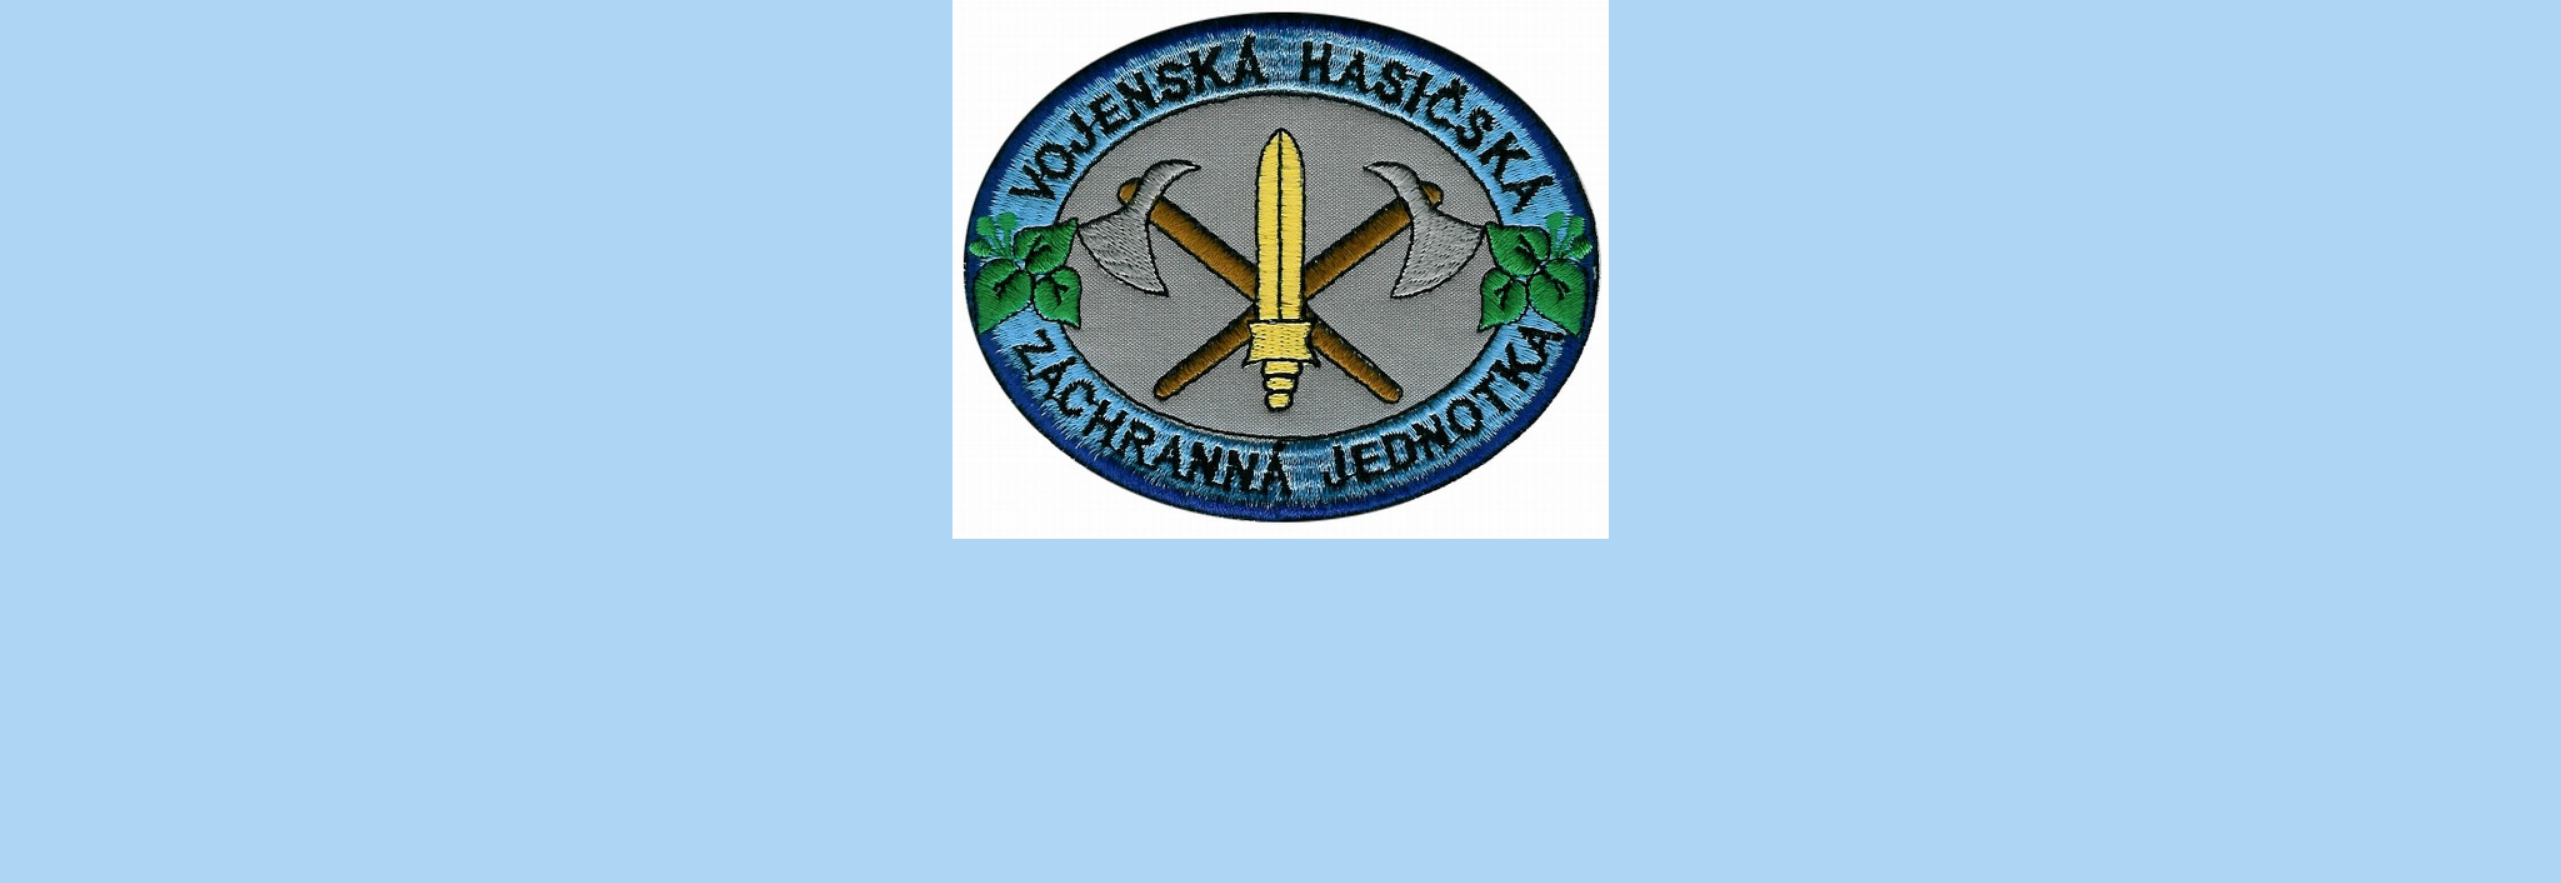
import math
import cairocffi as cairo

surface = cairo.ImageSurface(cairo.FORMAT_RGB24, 2561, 883)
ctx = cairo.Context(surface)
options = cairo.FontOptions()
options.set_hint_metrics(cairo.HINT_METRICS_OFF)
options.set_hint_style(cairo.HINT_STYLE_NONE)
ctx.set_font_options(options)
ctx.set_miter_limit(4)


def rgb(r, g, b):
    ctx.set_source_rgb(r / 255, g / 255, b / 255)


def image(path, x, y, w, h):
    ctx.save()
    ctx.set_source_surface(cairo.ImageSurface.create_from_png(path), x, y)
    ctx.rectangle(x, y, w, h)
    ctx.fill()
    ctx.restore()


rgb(175, 213, 244)
ctx.paint()
image('image0.png', 952, 0, 657, 539)
surface.write_to_png('render.png')
